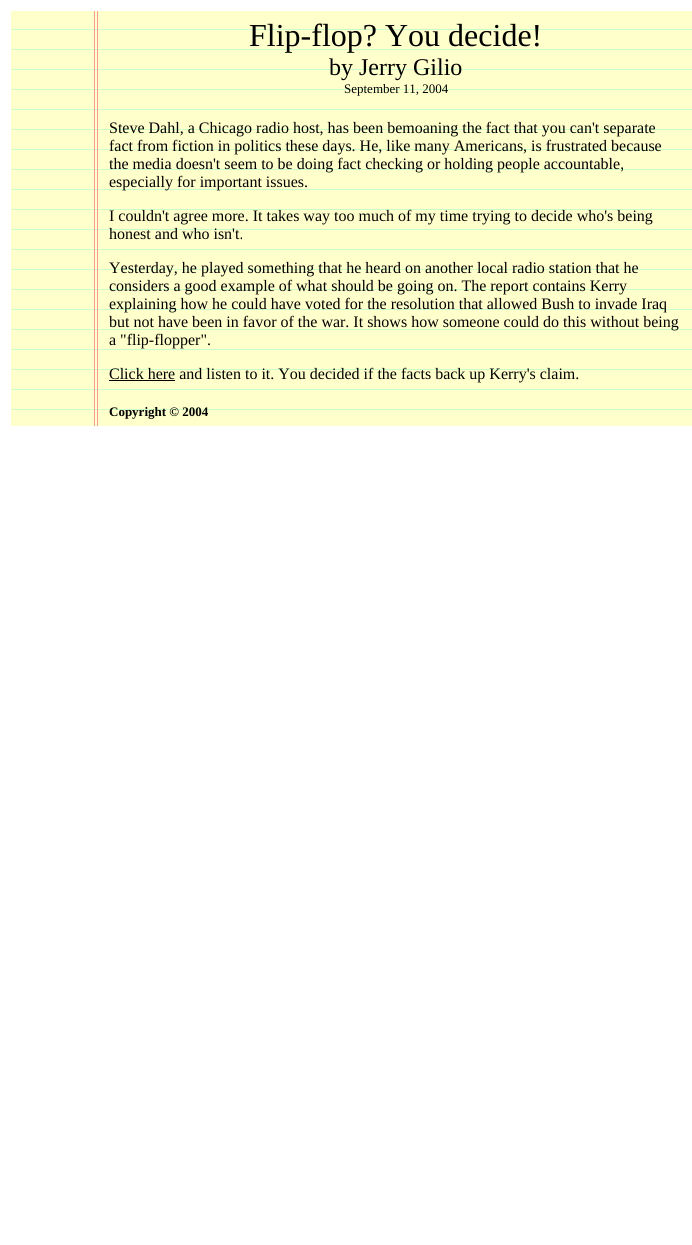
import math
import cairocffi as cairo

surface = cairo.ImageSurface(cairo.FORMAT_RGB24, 692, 1245)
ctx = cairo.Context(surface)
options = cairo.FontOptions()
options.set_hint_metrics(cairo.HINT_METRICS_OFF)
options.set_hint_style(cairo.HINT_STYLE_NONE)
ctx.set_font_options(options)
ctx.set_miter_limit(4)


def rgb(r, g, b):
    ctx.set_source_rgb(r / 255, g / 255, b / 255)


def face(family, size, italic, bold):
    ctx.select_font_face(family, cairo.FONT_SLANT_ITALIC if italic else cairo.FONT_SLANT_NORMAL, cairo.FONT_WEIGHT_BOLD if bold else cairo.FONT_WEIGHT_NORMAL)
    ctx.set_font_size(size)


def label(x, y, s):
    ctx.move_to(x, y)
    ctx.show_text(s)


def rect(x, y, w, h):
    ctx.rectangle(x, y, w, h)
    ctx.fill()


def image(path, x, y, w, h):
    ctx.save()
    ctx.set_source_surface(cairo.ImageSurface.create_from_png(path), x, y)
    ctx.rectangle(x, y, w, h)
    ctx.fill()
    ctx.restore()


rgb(255, 255, 255)
ctx.paint()
image('image0.png', 11, 11, 681, 415)
face('Liberation Serif', 32, 0, 0)
rgb(0, 0, 0)
label(249, 46, 'Flip-flop? You decide!')
face('Liberation Serif', 24, 0, 0)
label(329, 75, 'by Jerry Gilio')
face('Liberation Serif', 13, 0, 0)
label(344, 93, 'September 11, 2004')
face('Liberation Serif', 16, 0, 0)
label(109, 133, 'Steve Dahl, a Chicago radio host, has been bemoaning the fact that you can\'t separate')
label(109, 151, 'fact from fiction in politics these days. He, like many Americans, is frustrated because')
label(109, 169, 'the media doesn\'t seem to be doing fact checking or holding people accountable,')
label(109, 187, 'especially for important issues.')
label(109, 221, 'I couldn\'t agree more. It takes way too much of my time trying to decide who\'s being')
label(109, 239, 'honest and who isn\'t.')
label(109, 273, 'Yesterday, he played something that he heard on another local radio station that he')
label(109, 291, 'considers a good example of what should be going on. The report contains Kerry')
label(109, 309, 'explaining how he could have voted for the resolution that allowed Bush to invade Iraq')
label(109, 327, 'but not have been in favor of the war. It shows how someone could do this without being')
label(109, 345, 'a "flip-flopper".')
rect(109, 380, 66, 1)
label(109, 379, 'Click here and listen to it. You decided if the facts back up Kerry\'s claim.')
face('Liberation Serif', 13, 0, 1)
label(109, 416, 'Copyright © 2004')
surface.write_to_png('render.png')
